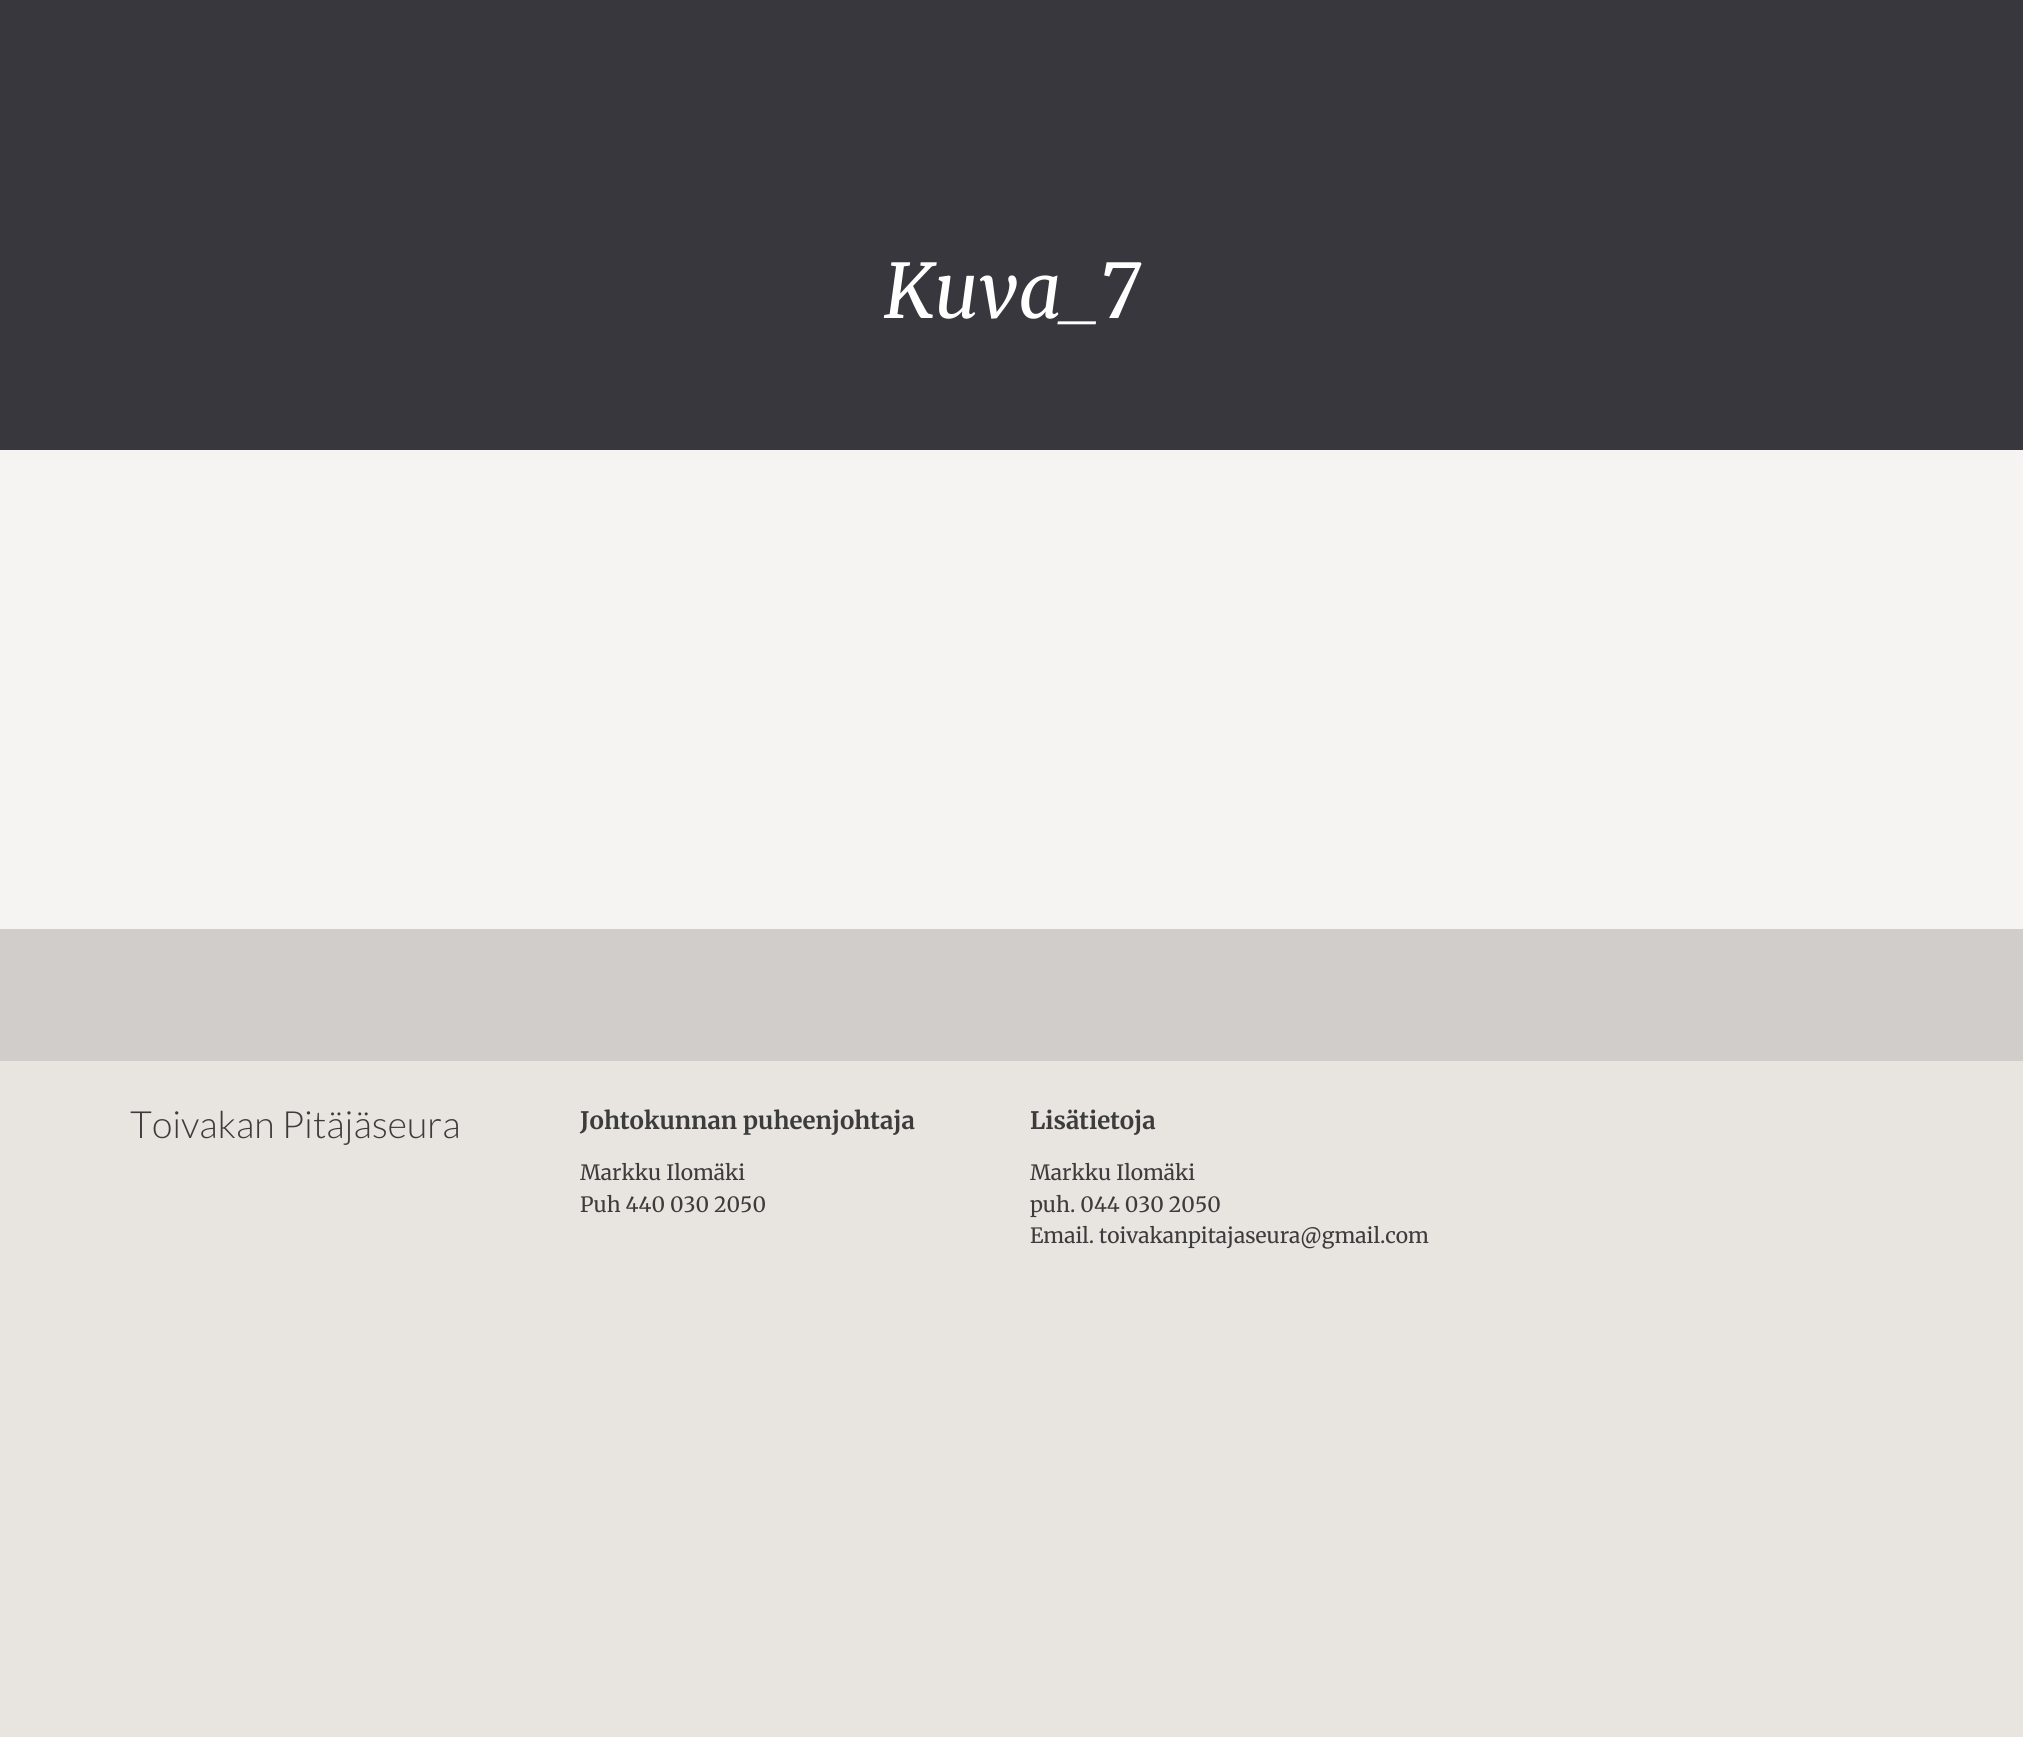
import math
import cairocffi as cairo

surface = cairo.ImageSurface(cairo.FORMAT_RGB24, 2023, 1737)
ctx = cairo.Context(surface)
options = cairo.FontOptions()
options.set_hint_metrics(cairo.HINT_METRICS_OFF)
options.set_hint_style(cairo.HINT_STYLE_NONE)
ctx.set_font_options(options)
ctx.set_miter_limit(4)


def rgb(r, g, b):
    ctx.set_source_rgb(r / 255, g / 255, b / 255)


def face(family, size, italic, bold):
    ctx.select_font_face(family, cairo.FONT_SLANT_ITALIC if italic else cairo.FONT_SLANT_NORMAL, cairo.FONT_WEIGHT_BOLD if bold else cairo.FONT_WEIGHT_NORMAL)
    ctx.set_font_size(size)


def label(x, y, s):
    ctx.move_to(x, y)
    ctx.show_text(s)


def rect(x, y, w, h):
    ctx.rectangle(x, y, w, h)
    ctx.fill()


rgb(245, 244, 243)
ctx.paint()
rgb(55, 55, 61)
rect(0, 0, 2023, 450)
face('Merriweather Light', 75, 1, 0)
rgb(255, 255, 255)
label(884, 318, 'Kuva_7')
rgb(232, 229, 225)
rect(0, 1061, 2023, 676)
rgb(209, 205, 202)
rect(0, 929, 2023, 132)
face('Lato Light', 37.5, 0, 0)
rgb(60, 60, 60)
label(130, 1138, 'Toivakan Pitäjäseura')
face('Merriweather', 24, 0, 1)
label(580, 1129, 'Johtokunnan puheenjohtaja')
face('Merriweather', 21, 0, 0)
label(580, 1180, 'Markku Ilomäki')
label(580, 1212, 'Puh 440 030 2050')
face('Merriweather', 24, 0, 1)
label(1030, 1129, 'Lisätietoja')
face('Merriweather', 21, 0, 0)
label(1030, 1180, 'Markku Ilomäki')
label(1030, 1212, 'puh. 044 030 2050')
label(1030, 1243, 'Email. toivakanpitajaseura@gmail.com')
surface.write_to_png('render.png')
